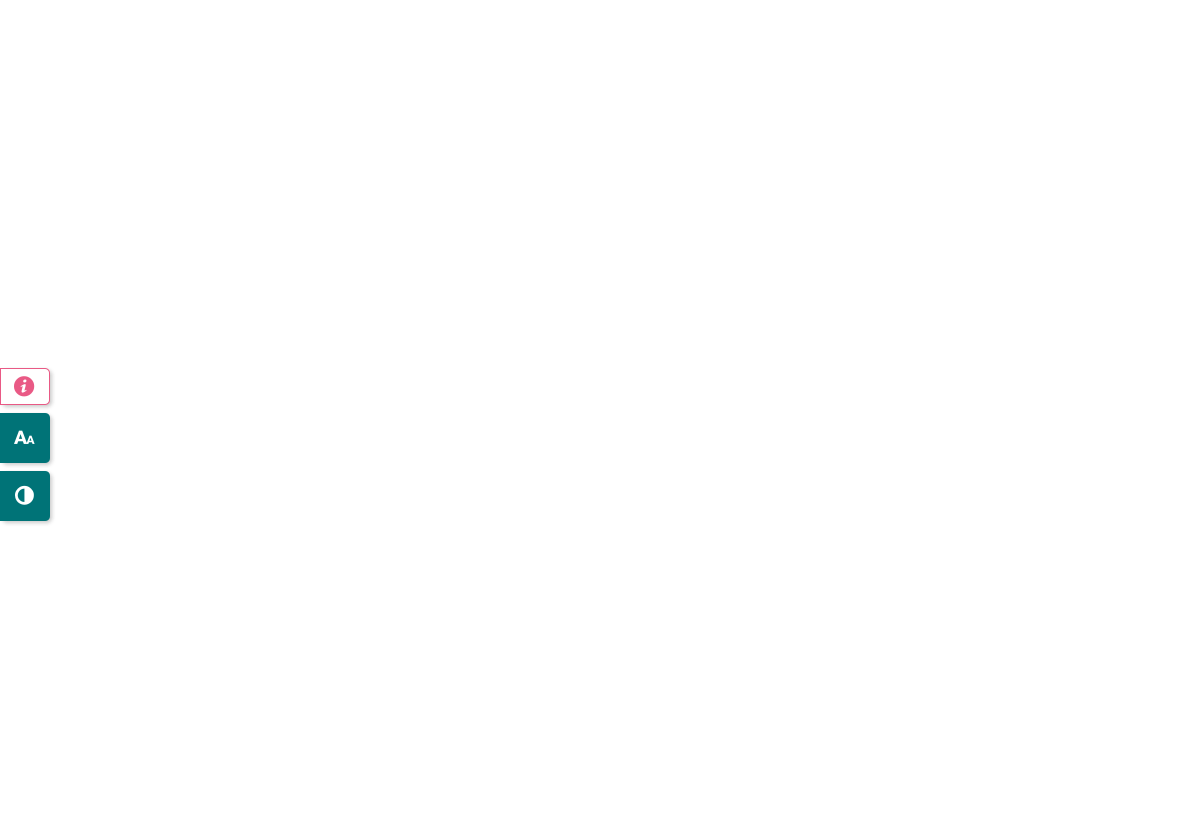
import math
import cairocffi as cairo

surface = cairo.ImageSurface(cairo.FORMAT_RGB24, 1186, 817)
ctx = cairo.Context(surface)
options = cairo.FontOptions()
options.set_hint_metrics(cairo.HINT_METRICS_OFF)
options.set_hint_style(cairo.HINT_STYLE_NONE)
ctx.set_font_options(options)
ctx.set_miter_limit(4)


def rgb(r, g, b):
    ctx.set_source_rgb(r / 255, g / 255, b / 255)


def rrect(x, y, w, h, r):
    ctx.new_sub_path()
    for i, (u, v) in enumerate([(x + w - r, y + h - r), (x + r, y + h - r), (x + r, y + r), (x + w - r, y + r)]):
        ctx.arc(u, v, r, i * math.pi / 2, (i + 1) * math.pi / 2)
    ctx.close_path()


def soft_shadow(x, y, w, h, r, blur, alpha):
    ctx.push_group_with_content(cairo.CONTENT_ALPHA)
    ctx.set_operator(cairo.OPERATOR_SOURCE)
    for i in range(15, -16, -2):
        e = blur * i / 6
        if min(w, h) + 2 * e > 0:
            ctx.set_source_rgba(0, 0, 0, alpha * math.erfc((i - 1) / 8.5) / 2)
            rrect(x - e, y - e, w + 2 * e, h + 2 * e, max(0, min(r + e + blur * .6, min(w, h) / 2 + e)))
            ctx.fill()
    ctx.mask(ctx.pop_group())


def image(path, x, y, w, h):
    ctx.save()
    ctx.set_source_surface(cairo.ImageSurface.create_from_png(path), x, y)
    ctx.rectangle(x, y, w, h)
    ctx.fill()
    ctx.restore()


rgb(255, 255, 255)
ctx.paint()
rgb(84, 84, 84)
soft_shadow(2, 370, 50, 37, 5, 2, 0.3)
rgb(255, 255, 255)
ctx.new_path()
ctx.move_to(0.5, 368.5)
ctx.line_to(45, 368.5)
ctx.curve_to(47.5, 368.5, 49.5, 370.5, 49.5, 373)
ctx.line_to(49.5, 400)
ctx.curve_to(49.5, 402.5, 47.5, 404.5, 45, 404.5)
ctx.line_to(0.5, 404.5)
ctx.close_path()
ctx.fill_preserve()
rgb(233, 89, 133)
ctx.set_line_width(1)
ctx.stroke()
image('image0.png', 14, 376, 21, 21)
rgb(84, 84, 84)
soft_shadow(2, 415, 50, 50, 5, 2, 0.3)
rgb(0, 115, 119)
ctx.new_path()
ctx.move_to(0, 413)
ctx.line_to(45, 413)
ctx.curve_to(48, 413, 50, 415, 50, 418)
ctx.line_to(50, 458)
ctx.curve_to(50, 461, 48, 463, 45, 463)
ctx.line_to(0, 463)
ctx.close_path()
ctx.fill()
image('image1.png', 14, 430, 21, 14)
rgb(84, 84, 84)
soft_shadow(2, 473, 50, 50, 5, 2, 0.3)
rgb(0, 115, 119)
ctx.new_path()
ctx.move_to(0, 471)
ctx.line_to(45, 471)
ctx.curve_to(48, 471, 50, 473, 50, 476)
ctx.line_to(50, 516)
ctx.curve_to(50, 519, 48, 521, 45, 521)
ctx.line_to(0, 521)
ctx.close_path()
ctx.fill()
image('image2.png', 15, 485, 19, 20)
surface.write_to_png('render.png')
